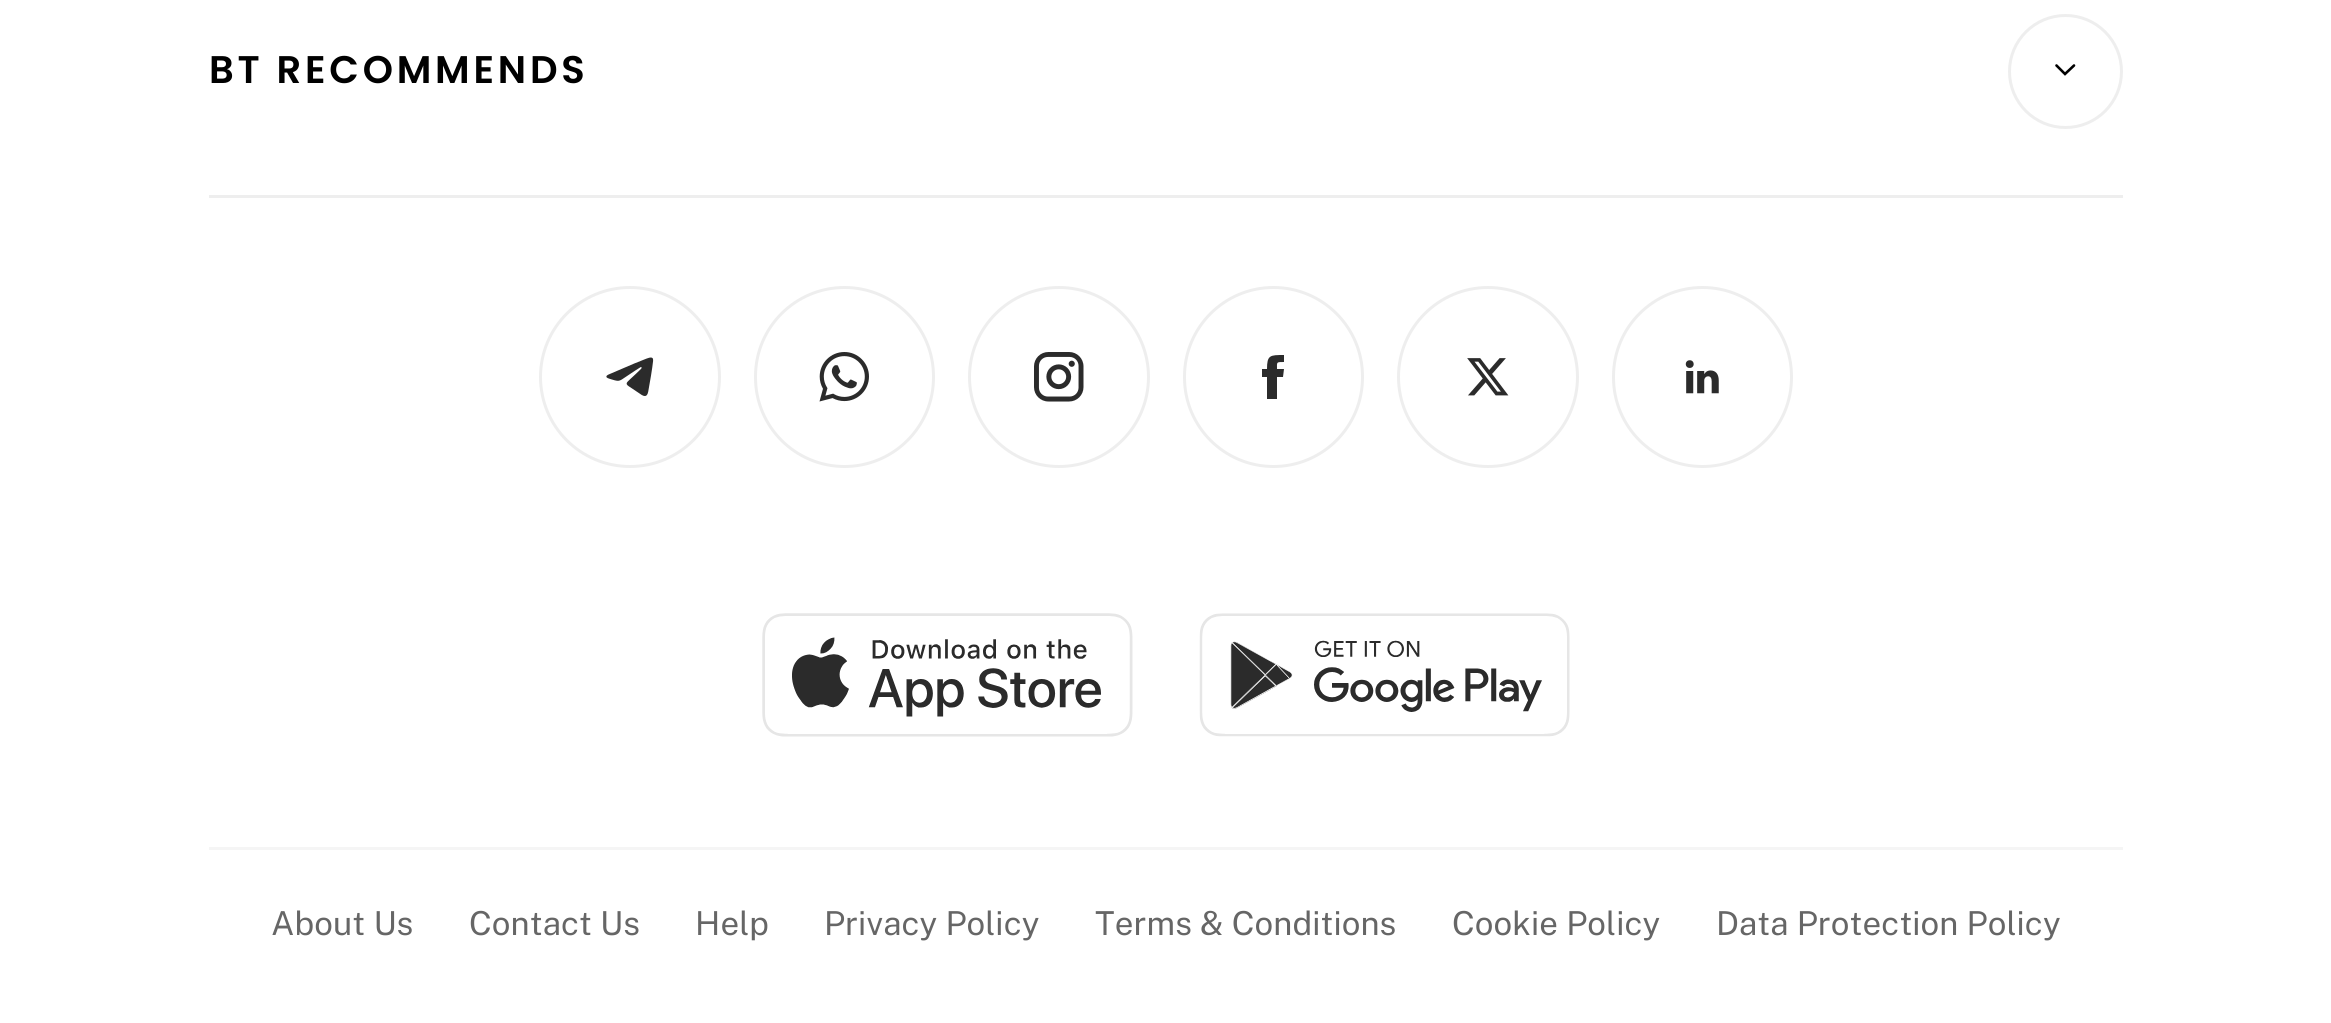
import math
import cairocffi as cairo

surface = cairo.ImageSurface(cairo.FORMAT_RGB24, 2331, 1023)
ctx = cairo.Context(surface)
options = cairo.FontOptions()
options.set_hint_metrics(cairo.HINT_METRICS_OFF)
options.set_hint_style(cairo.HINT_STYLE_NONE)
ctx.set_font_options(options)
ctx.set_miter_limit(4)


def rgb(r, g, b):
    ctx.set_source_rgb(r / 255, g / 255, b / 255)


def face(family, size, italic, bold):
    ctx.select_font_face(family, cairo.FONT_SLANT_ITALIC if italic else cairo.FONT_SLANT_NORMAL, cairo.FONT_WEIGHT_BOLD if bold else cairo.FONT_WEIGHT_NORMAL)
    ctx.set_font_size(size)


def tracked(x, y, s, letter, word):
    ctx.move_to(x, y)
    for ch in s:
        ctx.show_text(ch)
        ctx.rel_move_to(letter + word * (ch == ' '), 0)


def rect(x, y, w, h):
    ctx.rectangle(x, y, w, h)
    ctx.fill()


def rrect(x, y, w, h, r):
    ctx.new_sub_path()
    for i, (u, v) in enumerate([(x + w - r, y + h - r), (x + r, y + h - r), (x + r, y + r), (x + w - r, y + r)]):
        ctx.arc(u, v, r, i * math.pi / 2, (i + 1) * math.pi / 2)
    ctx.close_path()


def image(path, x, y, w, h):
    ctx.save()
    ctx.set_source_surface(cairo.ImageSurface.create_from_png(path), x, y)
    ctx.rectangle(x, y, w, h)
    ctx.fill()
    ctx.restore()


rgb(255, 255, 255)
ctx.paint()
face('Poppins SemiBold', 38.5, 0, 0)
rgb(0, 0, 0)
tracked(209, 83, 'BT RECOMMENDS', 3.8, 0)
ctx.new_path()
ctx.arc(2065.5, 71.5, 56, 0, 2 * math.pi)
rgb(238, 238, 238)
ctx.set_line_width(3)
ctx.stroke()
ctx.new_path()
ctx.move_to(2056.5, 65.5)
ctx.line_to(2065, 74)
ctx.line_to(2074, 65.5)
rgb(0, 0, 0)
ctx.set_line_width(2.6)
ctx.set_line_cap(cairo.LINE_CAP_ROUND)
ctx.stroke()
rgb(238, 238, 238)
rect(209, 195, 1914, 3)
ctx.arc(630, 377, 89.5, 0, 2 * math.pi)
ctx.set_line_width(3)
ctx.set_line_cap(cairo.LINE_CAP_BUTT)
ctx.stroke()
image('image0.png', 606, 357, 48, 39)
rrect(755.5, 287.5, 178, 179, 89)
ctx.stroke()
image('image1.png', 819, 352, 50, 50)
ctx.arc(1059, 377, 89.5, 0, 2 * math.pi)
ctx.stroke()
image('image2.png', 1034, 352, 50, 50)
rrect(1184.5, 287.5, 178, 179, 89)
ctx.stroke()
rgb(43, 43, 43)
ctx.new_path()
ctx.move_to(1277, 369)
ctx.curve_to(1277, 362, 1276, 362, 1284, 362)
ctx.line_to(1284, 355)
ctx.curve_to(1270, 355, 1267, 355, 1267, 369)
ctx.line_to(1262, 369)
ctx.line_to(1262, 377)
ctx.line_to(1267, 377)
ctx.line_to(1267, 399)
ctx.line_to(1277, 399)
ctx.line_to(1277, 377)
ctx.line_to(1283, 377)
ctx.line_to(1284, 369)
ctx.close_path()
ctx.fill()
ctx.arc(1488, 377, 89.5, 0, 2 * math.pi)
rgb(238, 238, 238)
ctx.stroke()
image('image3.png', 1467, 358, 42, 38)
rrect(1613.5, 287.5, 178, 179, 89)
ctx.stroke()
image('image4.png', 1685, 360, 34, 34)
image('image5.png', 762, 613, 371, 124)
image('image6.png', 1199, 613, 371, 124)
rgb(245, 245, 245)
rect(209, 847, 1914, 3)
face('Public Sans', 33, 0, 0)
rgb(102, 102, 102)
tracked(271, 935, 'About Us', 0.1, 0)
tracked(469, 935, 'Contact Us', 0.1, 0)
tracked(695, 935, 'Help', 0.1, 0)
tracked(824, 935, 'Privacy Policy', 0.1, 0)
tracked(1095, 935, 'Terms & Conditions', 0.1, 0)
tracked(1452, 935, 'Cookie Policy', 0.1, 0)
tracked(1716, 935, 'Data Protection Policy', 0.1, 0)
surface.write_to_png('render.png')
